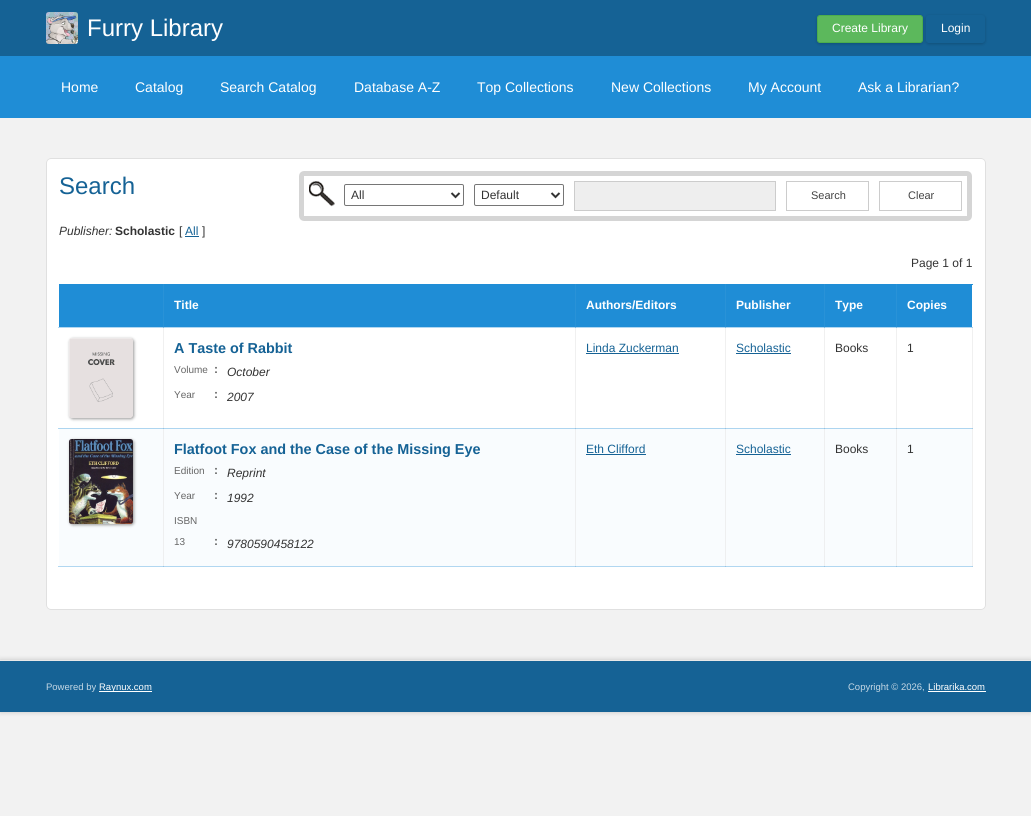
import math
import cairocffi as cairo

surface = cairo.ImageSurface(cairo.FORMAT_RGB24, 1031, 816)
ctx = cairo.Context(surface)
options = cairo.FontOptions()
options.set_hint_metrics(cairo.HINT_METRICS_OFF)
options.set_hint_style(cairo.HINT_STYLE_NONE)
ctx.set_font_options(options)
ctx.set_miter_limit(4)


def rgb(r, g, b):
    ctx.set_source_rgb(r / 255, g / 255, b / 255)


def face(family, size, italic, bold):
    ctx.select_font_face(family, cairo.FONT_SLANT_ITALIC if italic else cairo.FONT_SLANT_NORMAL, cairo.FONT_WEIGHT_BOLD if bold else cairo.FONT_WEIGHT_NORMAL)
    ctx.set_font_size(size)


def label(x, y, s):
    ctx.move_to(x, y)
    ctx.show_text(s)


def rect(x, y, w, h):
    ctx.rectangle(x, y, w, h)
    ctx.fill()


def rrect(x, y, w, h, r):
    ctx.new_sub_path()
    for i, (u, v) in enumerate([(x + w - r, y + h - r), (x + r, y + h - r), (x + r, y + r), (x + w - r, y + r)]):
        ctx.arc(u, v, r, i * math.pi / 2, (i + 1) * math.pi / 2)
    ctx.close_path()


def soft_shadow(x, y, w, h, r, blur, alpha):
    ctx.push_group_with_content(cairo.CONTENT_ALPHA)
    ctx.set_operator(cairo.OPERATOR_SOURCE)
    for i in range(15, -16, -2):
        e = blur * i / 6
        if min(w, h) + 2 * e > 0:
            ctx.set_source_rgba(0, 0, 0, alpha * math.erfc((i - 1) / 8.5) / 2)
            rrect(x - e, y - e, w + 2 * e, h + 2 * e, max(0, min(r + e + blur * .6, min(w, h) / 2 + e)))
            ctx.fill()
    ctx.mask(ctx.pop_group())


def image(path, x, y, w, h):
    ctx.save()
    ctx.set_source_surface(cairo.ImageSurface.create_from_png(path), x, y)
    ctx.rectangle(x, y, w, h)
    ctx.fill()
    ctx.restore()


rgb(242, 242, 242)
ctx.paint()
rgb(21, 98, 149)
rect(0, 0, 1031, 56)
image('image0.png', 46, 12, 32, 32)
face('Liberation Sans', 24, 0, 0)
rgb(255, 255, 255)
label(87, 36, 'Furry Library')
rgb(0, 0, 0)
soft_shadow(817, 16, 106, 28, 3, 1.5, 0.2)
rgb(92, 184, 92)
rrect(817.5, 15.5, 105, 27, 2.5)
ctx.fill_preserve()
rgb(76, 174, 76)
ctx.set_line_width(1)
ctx.stroke()
face('Liberation Sans', 12, 0, 0)
rgb(255, 255, 255)
label(832, 32, 'Create Library')
rgb(0, 0, 0)
soft_shadow(926, 16, 59, 28, 3, 1.5, 0.2)
rgb(21, 98, 149)
rrect(926.5, 15.5, 58, 27, 2.5)
ctx.fill_preserve()
ctx.stroke()
rgb(255, 255, 255)
label(941, 32, 'Login')
rgb(31, 141, 214)
rect(0, 56, 1031, 62)
face('Liberation Sans', 14, 0, 0)
rgb(255, 255, 255)
label(61, 92, 'Home')
label(135, 92, 'Catalog')
label(220, 92, 'Search Catalog')
label(354, 92, 'Database A-Z')
label(477, 92, 'Top Collections')
label(611, 92, 'New Collections')
label(748, 92, 'My Account')
label(858, 92, 'Ask a Librarian?')
rrect(46, 158, 940, 452, 5)
ctx.fill()
rgb(177, 215, 241)
rect(58, 327, 915, 1)
rgb(254, 254, 254)
rect(972, 327, 1, 1)
rgb(177, 215, 241)
rect(58, 428, 1, 1)
rgb(240, 240, 240)
rect(163, 327, 1, 102)
rgb(121, 183, 225)
rect(163, 327, 1, 1)
rgb(240, 240, 240)
rect(575, 327, 1, 102)
rgb(121, 183, 225)
rect(575, 327, 1, 1)
rgb(240, 240, 240)
rect(725, 327, 1, 102)
rgb(121, 183, 225)
rect(725, 327, 1, 1)
rgb(240, 240, 240)
rect(824, 327, 1, 102)
rgb(121, 183, 225)
rect(824, 327, 1, 1)
rgb(240, 240, 240)
rect(896, 327, 1, 102)
rgb(121, 183, 225)
rect(896, 327, 1, 1)
rgb(240, 240, 240)
rect(972, 327, 1, 102)
rgb(167, 205, 231)
rect(972, 327, 1, 1)
rgb(177, 215, 241)
rect(58, 566, 915, 1)
rgb(149, 196, 228)
rect(163, 566, 1, 1)
rect(575, 566, 1, 1)
rect(725, 566, 1, 1)
rect(824, 566, 1, 1)
rect(896, 566, 1, 1)
rrect(46.5, 158.5, 939, 451, 4.5)
rgb(224, 224, 224)
ctx.stroke()
face('Liberation Sans', 24, 0, 0)
rgb(21, 98, 149)
label(59, 194, 'Search')
rrect(301.5, 173.5, 668, 45, 2.5)
rgb(213, 213, 213)
ctx.set_line_width(5)
ctx.stroke()
image('image1.png', 309, 181, 26, 26)
rrect(344.5, 184.5, 119, 21, 1.5)
rgb(118, 118, 118)
ctx.set_line_width(1)
ctx.stroke()
ctx.new_path()
ctx.move_to(451.5, 193)
ctx.line_to(455.5, 197)
ctx.line_to(459.5, 193)
rgb(51, 51, 51)
ctx.set_line_width(2)
ctx.stroke()
face('Liberation Sans', 12, 0, 0)
label(351, 199, 'All')
rrect(474.5, 184.5, 89, 21, 1.5)
rgb(118, 118, 118)
ctx.set_line_width(1)
ctx.stroke()
ctx.new_path()
ctx.move_to(551.5, 193)
ctx.line_to(555.5, 197)
ctx.line_to(559.5, 193)
rgb(51, 51, 51)
ctx.set_line_width(2)
ctx.stroke()
label(481, 199, 'Default')
rgb(238, 238, 238)
ctx.rectangle(574.5, 181.5, 201, 29)
ctx.fill_preserve()
rgb(204, 204, 204)
ctx.set_line_width(1)
ctx.stroke()
ctx.rectangle(786.5, 181.5, 82, 29)
ctx.stroke()
face('Liberation Sans', 11, 0, 0)
rgb(68, 68, 68)
label(811, 199, 'Search')
ctx.rectangle(879.5, 181.5, 82, 29)
rgb(204, 204, 204)
ctx.stroke()
rgb(68, 68, 68)
label(908, 199, 'Clear')
face('Liberation Sans', 12, 1, 0)
rgb(51, 51, 51)
label(59, 235, 'Publisher:')
face('Liberation Sans', 12, 0, 1)
label(115, 235, 'Scholastic')
face('Liberation Sans', 12, 0, 0)
label(179, 235, '[')
rgb(21, 98, 149)
label(185, 235, 'All')
rect(185, 236, 14, 1)
rgb(51, 51, 51)
label(202, 235, ']')
label(911, 267, 'Page 1 of 1')
rgb(31, 141, 214)
rect(59, 284, 914, 1)
rgb(41, 146, 215)
rect(163, 284, 1, 1)
rect(575, 284, 1, 1)
rect(725, 284, 1, 1)
rect(824, 284, 1, 1)
rect(896, 284, 1, 1)
rect(972, 284, 1, 1)
rgb(31, 141, 214)
rect(59, 285, 104, 42)
rgb(41, 146, 215)
rect(163, 285, 1, 42)
rgb(31, 141, 214)
rect(164, 285, 411, 42)
rgb(41, 146, 215)
rect(575, 285, 1, 42)
face('Liberation Sans', 12, 0, 1)
rgb(255, 255, 255)
label(174, 309, 'Title')
rgb(31, 141, 214)
rect(576, 285, 149, 42)
rgb(41, 146, 215)
rect(725, 285, 1, 42)
rgb(255, 255, 255)
label(586, 309, 'Authors/Editors')
rgb(31, 141, 214)
rect(726, 285, 98, 42)
rgb(255, 255, 255)
label(736, 309, 'Publisher')
rgb(31, 141, 214)
rect(825, 285, 71, 42)
rgb(41, 146, 215)
rect(824, 285, 1, 42)
rgb(255, 255, 255)
label(835, 309, 'Type')
rgb(31, 141, 214)
rect(897, 285, 75, 42)
rgb(41, 146, 215)
rect(896, 285, 1, 42)
rgb(255, 255, 255)
label(907, 309, 'Copies')
ctx.save()
ctx.set_fill_rule(cairo.FILL_RULE_EVEN_ODD)
ctx.new_path()
ctx.move_to(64, 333)
ctx.line_to(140, 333)
ctx.line_to(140, 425)
ctx.line_to(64, 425)
ctx.close_path()
ctx.move_to(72, 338)
ctx.line_to(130, 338)
ctx.curve_to(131.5, 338, 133, 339.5, 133, 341)
ctx.line_to(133, 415)
ctx.curve_to(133, 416.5, 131.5, 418, 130, 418)
ctx.line_to(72, 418)
ctx.curve_to(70.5, 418, 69, 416.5, 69, 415)
ctx.line_to(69, 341)
ctx.curve_to(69, 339.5, 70.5, 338, 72, 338)
ctx.close_path()
ctx.clip()
rgb(153, 153, 153)
soft_shadow(70, 339, 64, 80, 3, 1.5, 1)
ctx.restore()
image('image2.png', 69, 338, 64, 80)
face('Liberation Sans', 14.4, 0, 1)
rgb(21, 98, 149)
label(174, 353, 'A Taste of Rabbit')
face('Liberation Sans', 10, 0, 0)
rgb(102, 102, 102)
label(174, 373, 'Volume')
face('Liberation Sans', 12, 0, 1)
label(214, 373, ':')
face('Liberation Sans', 12, 1, 0)
rgb(51, 51, 51)
label(227, 376, 'October')
face('Liberation Sans', 10, 0, 0)
rgb(102, 102, 102)
label(174, 398, 'Year')
face('Liberation Sans', 12, 0, 1)
label(214, 398, ':')
face('Liberation Sans', 12, 1, 0)
rgb(51, 51, 51)
label(227, 401, '2007')
face('Liberation Sans', 12, 0, 0)
rgb(21, 98, 149)
label(586, 352, 'Linda Zuckerman')
rect(586, 353, 93, 1)
label(736, 352, 'Scholastic')
rect(736, 353, 55, 1)
rgb(51, 51, 51)
label(835, 352, 'Books')
label(907, 352, '1')
rgb(249, 252, 254)
rect(59, 429, 913, 137)
rgb(173, 213, 240)
rect(59, 428, 913, 1)
rgb(238, 239, 240)
rect(163, 428, 1, 138)
rgb(147, 194, 226)
rect(163, 428, 1, 1)
rgb(238, 239, 240)
rect(575, 428, 1, 138)
rgb(147, 194, 226)
rect(575, 428, 1, 1)
rgb(238, 239, 240)
rect(725, 428, 1, 138)
rgb(147, 194, 226)
rect(725, 428, 1, 1)
rgb(238, 239, 240)
rect(824, 428, 1, 138)
rgb(147, 194, 226)
rect(824, 428, 1, 1)
rgb(238, 239, 240)
rect(896, 428, 1, 138)
rgb(147, 194, 226)
rect(896, 428, 1, 1)
rgb(153, 153, 153)
soft_shadow(70, 440, 64, 85, 3, 1.5, 1)
image('image3.png', 69, 439, 64, 85)
face('Liberation Sans', 14.4, 0, 1)
rgb(21, 98, 149)
label(174, 454, 'Flatfoot Fox and the Case of the Missing Eye')
face('Liberation Sans', 10, 0, 0)
rgb(102, 102, 102)
label(174, 474, 'Edition')
face('Liberation Sans', 12, 0, 1)
label(214, 474, ':')
face('Liberation Sans', 12, 1, 0)
rgb(51, 51, 51)
label(227, 477, 'Reprint')
face('Liberation Sans', 10, 0, 0)
rgb(102, 102, 102)
label(174, 499, 'Year')
face('Liberation Sans', 12, 0, 1)
label(214, 499, ':')
face('Liberation Sans', 12, 1, 0)
rgb(51, 51, 51)
label(227, 502, '1992')
face('Liberation Sans', 10, 0, 0)
rgb(102, 102, 102)
label(174, 524, 'ISBN')
label(174, 545, '13')
face('Liberation Sans', 12, 0, 1)
label(214, 545, ':')
face('Liberation Sans', 12, 1, 0)
rgb(51, 51, 51)
label(227, 548, '9780590458122')
face('Liberation Sans', 12, 0, 0)
rgb(21, 98, 149)
label(586, 453, 'Eth Clifford')
rect(586, 454, 60, 1)
label(736, 453, 'Scholastic')
rect(736, 454, 55, 1)
rgb(51, 51, 51)
label(835, 453, 'Books')
rgb(240, 240, 240)
rect(972, 428, 1, 139)
rgb(164, 202, 228)
rect(972, 428, 1, 1)
rgb(167, 205, 231)
rect(972, 566, 1, 1)
rgb(51, 51, 51)
label(907, 453, '1')
rgb(0, 0, 0)
soft_shadow(0, 660, 1031, 52, 0, 2.5, 0.2)
rgb(21, 98, 149)
rect(0, 661, 1031, 51)
rgb(232, 232, 232)
rect(0, 660, 1031, 1)
face('Liberation Sans', 9.5, 0, 0)
rgb(197, 216, 229)
label(46, 690, 'Powered by')
rgb(255, 255, 255)
rect(99, 691, 53, 1)
label(99, 690, 'Raynux.com')
rgb(197, 216, 229)
label(848, 690, 'Copyright © 2026,')
rgb(255, 255, 255)
label(928, 690, 'Librarika.com')
rect(928, 691, 58, 1)
surface.write_to_png('render.png')
